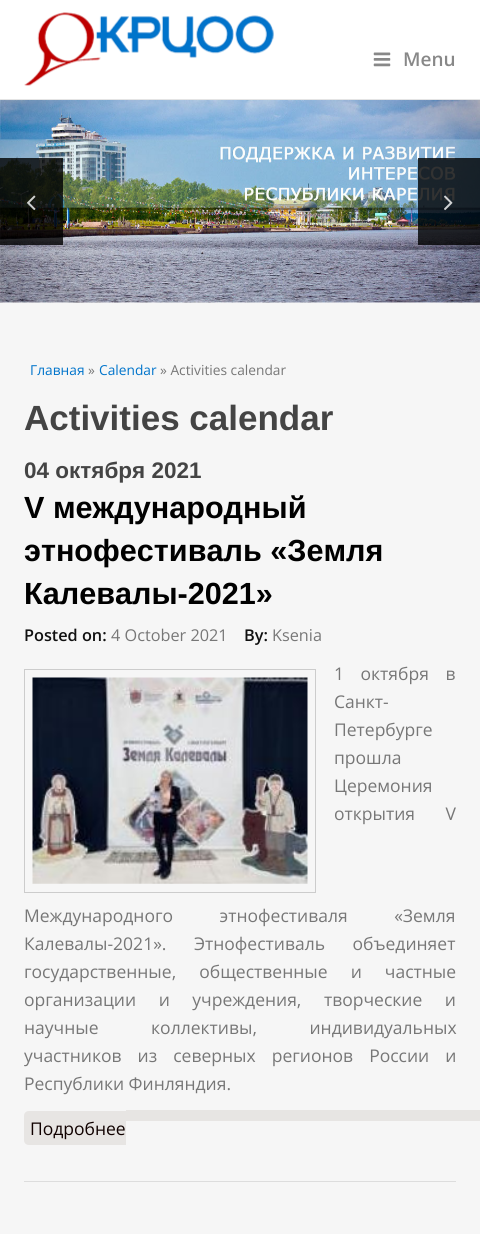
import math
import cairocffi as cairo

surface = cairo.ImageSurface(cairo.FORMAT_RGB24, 480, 1234)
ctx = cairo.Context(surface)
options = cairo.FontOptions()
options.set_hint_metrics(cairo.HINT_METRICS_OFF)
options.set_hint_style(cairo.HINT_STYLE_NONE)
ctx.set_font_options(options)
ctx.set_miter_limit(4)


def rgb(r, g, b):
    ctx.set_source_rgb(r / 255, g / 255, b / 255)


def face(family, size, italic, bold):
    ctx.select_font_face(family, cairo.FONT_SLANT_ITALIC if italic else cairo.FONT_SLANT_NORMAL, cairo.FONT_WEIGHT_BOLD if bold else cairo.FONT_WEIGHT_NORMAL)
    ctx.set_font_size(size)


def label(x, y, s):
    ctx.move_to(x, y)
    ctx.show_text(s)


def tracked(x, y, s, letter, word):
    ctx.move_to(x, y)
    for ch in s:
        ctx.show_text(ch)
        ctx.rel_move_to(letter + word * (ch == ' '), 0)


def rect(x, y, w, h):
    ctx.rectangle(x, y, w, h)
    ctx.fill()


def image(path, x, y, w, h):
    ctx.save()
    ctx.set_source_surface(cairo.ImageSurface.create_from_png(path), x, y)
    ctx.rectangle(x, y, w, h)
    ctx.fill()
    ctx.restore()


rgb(246, 246, 246)
ctx.paint()
rgb(255, 255, 255)
rect(0, 0, 480, 99)
rgb(228, 228, 228)
rect(0, 99, 480, 1)
image('image0.png', 24, 12, 250, 74)
image('image1.png', 373, 52, 18, 15)
face('Open Sans SemiBold', 19, 0, 0)
rgb(136, 136, 136)
label(403, 66, 'Menu')
image('image2.png', 0, 100, 480, 203)
ctx.set_source_rgba(0, 0, 0, 0.8)
rect(0, 158, 63, 87)
image('image3.png', 27, 195, 9, 16)
rect(418, 158, 62, 87)
image('image4.png', 444, 195, 9, 16)
face('Open Sans', 13.75, 0, 0)
rgb(0, 116, 203)
label(30, 375, 'Главная')
rgb(119, 119, 119)
label(88, 375, '»')
rgb(0, 116, 203)
label(99, 375, 'Calendar')
rgb(119, 119, 119)
label(160, 375, '» Activities calendar')
face('Liberation Sans', 35, 0, 1)
rgb(68, 68, 68)
label(24, 430, 'Activities calendar')
face('Liberation Sans', 22.5, 0, 1)
label(24, 478, '04 октября 2021')
rgb(221, 221, 221)
rect(24, 1181, 432, 1)
face('Liberation Sans', 30.6, 0, 1)
rgb(0, 0, 0)
label(24, 518, 'V международный')
label(24, 561, 'этнофестиваль «Земля')
label(24, 604, 'Калевалы-2021»')
face('Open Sans SemiBold', 16.25, 0, 0)
rgb(17, 17, 17)
label(24, 641, 'Posted on:')
face('Open Sans', 16.25, 0, 0)
rgb(119, 119, 119)
label(111, 641, '4 October 2021')
face('Open Sans SemiBold', 16.25, 0, 0)
rgb(17, 17, 17)
label(244, 641, 'By:')
face('Open Sans', 16.25, 0, 0)
rgb(119, 119, 119)
label(272, 641, 'Ksenia')
face('Open Sans', 17.5, 0, 0)
tracked(334, 680, '1 октября в', 0, 12)
label(334, 708, 'Санкт-')
label(334, 736, 'Петербурге')
label(334, 764, 'прошла')
label(334, 792, 'Церемония')
tracked(334, 820, 'открытия V', 0, 26)
tracked(24, 922, 'Международного этнофестиваля «Земля', 0, 42)
tracked(24, 950, 'Калевалы-2021». Этнофестиваль объединяет', 0, 23)
tracked(24, 978, 'государственные, общественные и частные', 0, 18.5)
tracked(24, 1006, 'организации и учреждения, творческие и', 0, 18)
tracked(24, 1034, 'научные коллективы, индивидуальных', 0, 48)
tracked(24, 1062, 'участников из северных регионов России и', 0, 11.5)
label(24, 1090, 'Республики Финляндия.')
ctx.rectangle(24.5, 669.5, 291, 223)
rgb(204, 204, 204)
ctx.set_line_width(1)
ctx.stroke()
image('image5.png', 32, 677, 276, 207)
rgb(231, 229, 227)
ctx.new_path()
ctx.move_to(29, 1111)
ctx.line_to(126, 1111)
ctx.line_to(126, 1145)
ctx.line_to(29, 1145)
ctx.curve_to(26, 1145, 24, 1143, 24, 1140)
ctx.line_to(24, 1116)
ctx.curve_to(24, 1113, 26, 1111, 29, 1111)
ctx.close_path()
ctx.fill()
rgb(16, 1, 0)
label(30, 1135, 'Подробнее')
rgb(231, 229, 227)
rect(126, 1110, 354, 11)
surface.write_to_png('render.png')
